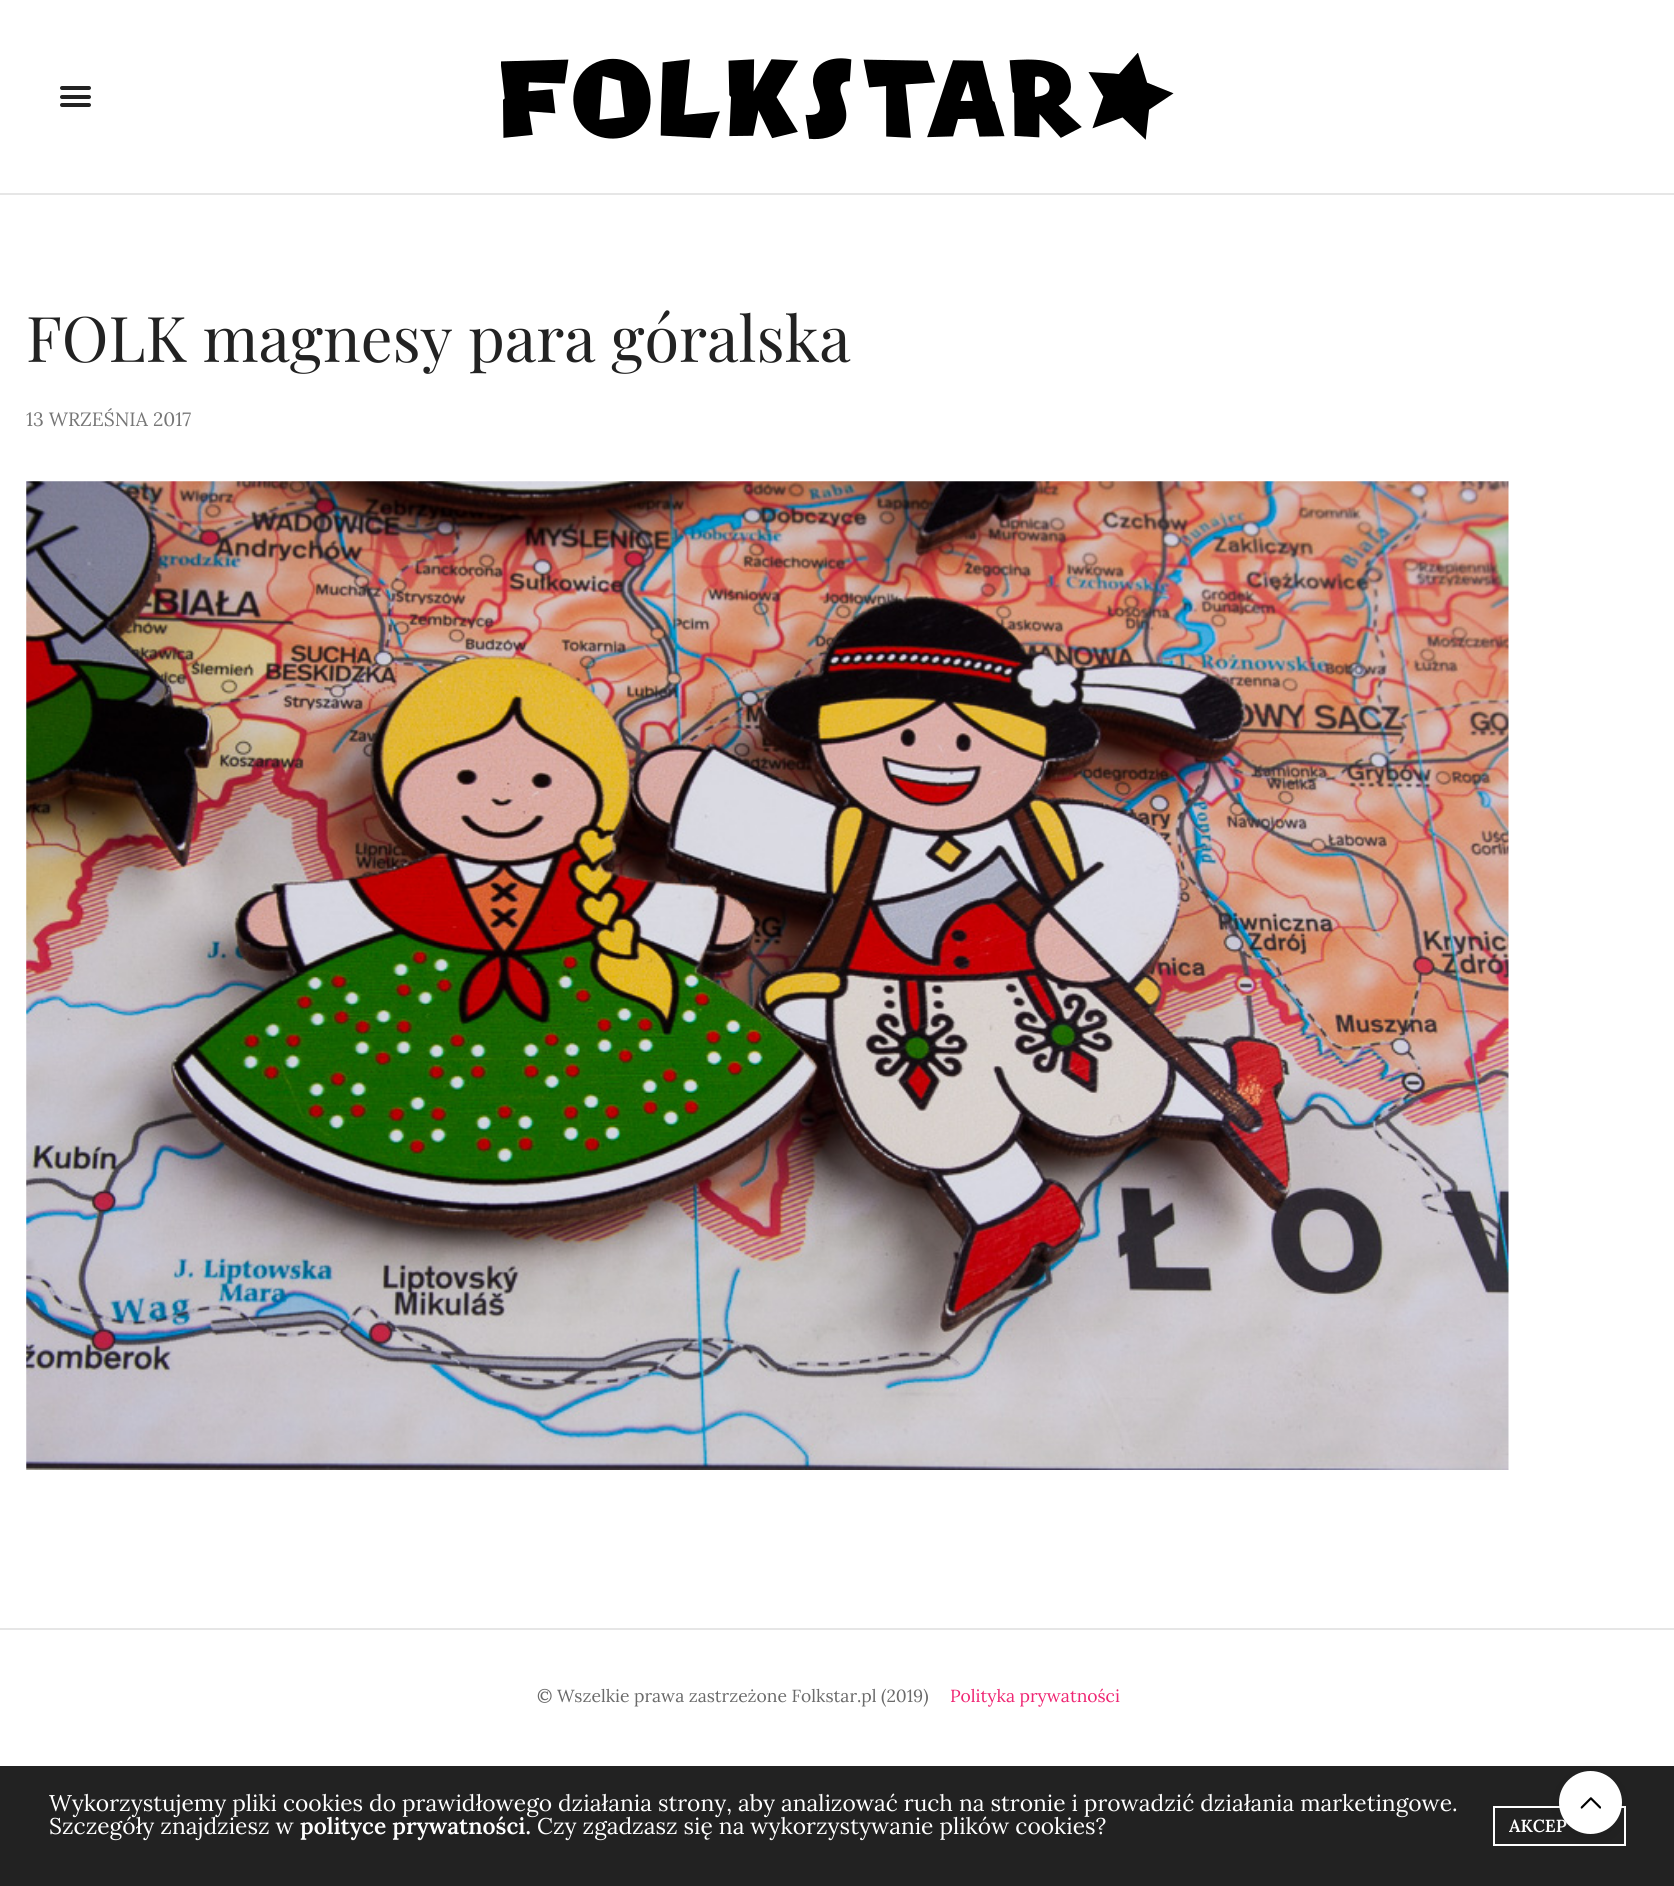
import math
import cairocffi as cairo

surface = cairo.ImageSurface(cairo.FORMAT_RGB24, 1674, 1886)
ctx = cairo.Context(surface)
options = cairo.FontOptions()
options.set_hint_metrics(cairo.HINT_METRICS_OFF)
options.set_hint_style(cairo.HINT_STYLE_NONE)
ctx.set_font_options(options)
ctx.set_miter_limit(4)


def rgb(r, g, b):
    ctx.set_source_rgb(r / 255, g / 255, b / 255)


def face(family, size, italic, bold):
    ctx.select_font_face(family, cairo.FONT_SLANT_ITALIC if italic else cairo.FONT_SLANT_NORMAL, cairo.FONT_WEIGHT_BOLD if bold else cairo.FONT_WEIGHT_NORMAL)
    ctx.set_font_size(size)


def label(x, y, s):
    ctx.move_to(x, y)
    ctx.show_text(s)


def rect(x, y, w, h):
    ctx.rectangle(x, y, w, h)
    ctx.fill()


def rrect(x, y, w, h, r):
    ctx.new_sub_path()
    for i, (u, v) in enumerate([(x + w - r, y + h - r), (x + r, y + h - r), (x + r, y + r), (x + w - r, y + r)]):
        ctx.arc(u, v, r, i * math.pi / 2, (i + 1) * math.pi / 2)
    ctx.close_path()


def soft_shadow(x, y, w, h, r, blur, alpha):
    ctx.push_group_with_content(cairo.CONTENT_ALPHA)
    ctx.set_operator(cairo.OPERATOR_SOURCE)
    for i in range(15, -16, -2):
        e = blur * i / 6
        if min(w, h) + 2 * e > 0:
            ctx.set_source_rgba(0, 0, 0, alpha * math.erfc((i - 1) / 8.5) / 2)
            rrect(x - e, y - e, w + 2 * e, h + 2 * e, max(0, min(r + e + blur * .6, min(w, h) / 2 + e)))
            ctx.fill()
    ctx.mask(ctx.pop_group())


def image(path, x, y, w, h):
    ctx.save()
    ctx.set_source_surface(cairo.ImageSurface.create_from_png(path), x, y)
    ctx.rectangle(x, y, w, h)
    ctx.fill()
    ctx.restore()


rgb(255, 255, 255)
ctx.paint()
rgb(230, 230, 230)
rect(0, 193, 1674, 2)
rgb(34, 34, 34)
rrect(60, 86, 31, 4, 2)
ctx.fill()
rrect(60, 95, 31, 4, 2)
ctx.fill()
rrect(60, 103, 31, 4, 2)
ctx.fill()
image('image0.png', 501, 53, 673, 87)
face('Playfair Display', 63, 0, 0)
label(26, 362, 'FOLK magnesy para góralska')
face('Lora', 19.25, 0, 0)
rgb(118, 118, 118)
label(26, 426, '13 WRZEŚNIA 2017')
image('image1.png', 26, 481, 1483, 989)
rgb(230, 230, 230)
rect(0, 1628, 1674, 2)
face('Lora', 17.5, 0, 0)
rgb(106, 106, 106)
label(537, 1702, '© Wszelkie prawa zastrzeżone Folkstar.pl (2019)')
rgb(239, 38, 115)
label(950, 1702, 'Polityka prywatności')
rgb(34, 34, 34)
rect(0, 1766, 1674, 120)
face('Lora', 22.75, 0, 0)
rgb(255, 255, 255)
label(49, 1811, 'Wykorzystujemy pliki cookies do prawidłowego działania strony, aby analizować ruch na stronie i prowadzić działania marketingowe.')
label(49, 1834, 'Szczegóły znajdziesz w')
face('Lora SemiBold', 22.75, 0, 0)
label(300, 1834, 'polityce prywatności.')
face('Lora', 22.75, 0, 0)
label(537, 1834, 'Czy zgadzasz się na wykorzystywanie plików cookies?')
ctx.rectangle(1494, 1807, 131, 38)
ctx.stroke()
face('Lora SemiBold', 17.5, 0, 0)
label(1509, 1832, 'AKCEP')
rgb(0, 0, 0)
soft_shadow(1559, 1775, 63, 63, 31.5, 7, 0.1)
rgb(255, 255, 255)
ctx.arc(1590.5, 1802.5, 31.5, 0, 2 * math.pi)
ctx.fill()
image('image2.png', 1580, 1797, 21, 12)
surface.write_to_png('render.png')
